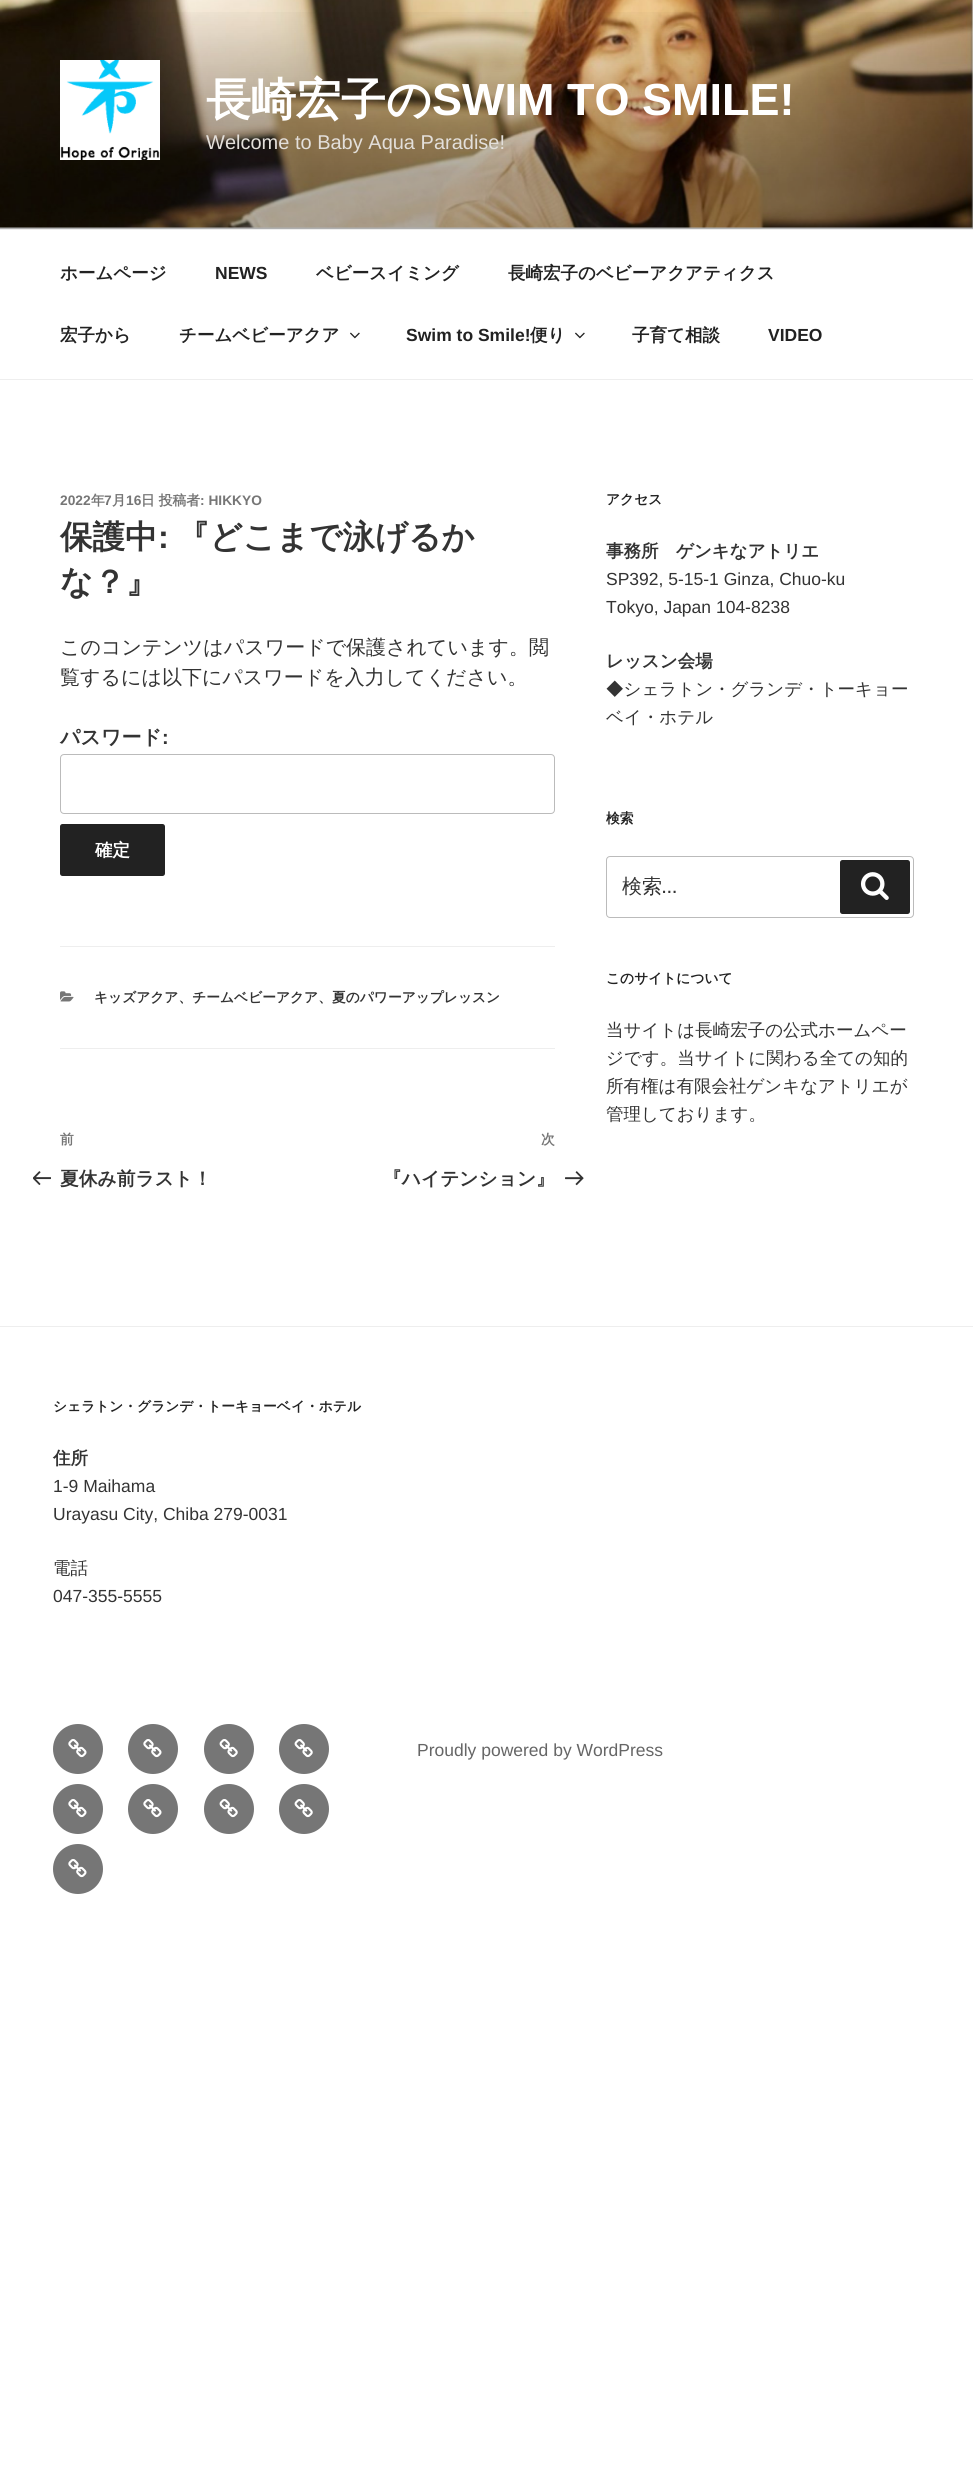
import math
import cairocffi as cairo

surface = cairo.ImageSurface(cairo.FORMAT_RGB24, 973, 2483)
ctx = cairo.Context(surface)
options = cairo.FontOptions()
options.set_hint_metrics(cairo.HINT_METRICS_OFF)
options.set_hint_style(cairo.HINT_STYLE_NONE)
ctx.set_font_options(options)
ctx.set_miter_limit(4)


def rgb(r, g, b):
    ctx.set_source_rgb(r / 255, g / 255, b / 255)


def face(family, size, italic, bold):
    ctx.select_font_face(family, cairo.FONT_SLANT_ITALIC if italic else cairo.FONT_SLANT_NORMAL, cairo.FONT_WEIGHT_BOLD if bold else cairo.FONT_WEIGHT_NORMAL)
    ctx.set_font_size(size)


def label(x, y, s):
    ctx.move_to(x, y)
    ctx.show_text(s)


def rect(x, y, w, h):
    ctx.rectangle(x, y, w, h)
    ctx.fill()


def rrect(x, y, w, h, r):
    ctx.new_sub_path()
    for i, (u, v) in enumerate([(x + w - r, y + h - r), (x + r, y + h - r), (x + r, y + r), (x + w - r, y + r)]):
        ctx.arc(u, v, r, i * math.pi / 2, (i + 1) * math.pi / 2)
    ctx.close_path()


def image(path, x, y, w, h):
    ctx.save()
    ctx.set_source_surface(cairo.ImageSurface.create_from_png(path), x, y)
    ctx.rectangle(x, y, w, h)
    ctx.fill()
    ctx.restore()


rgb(255, 255, 255)
ctx.paint()
rgb(250, 250, 250)
rect(0, 227, 973, 2)
image('image0.png', 0, 0, 973, 228)
gradient = cairo.LinearGradient(487, 0, 487, 229)
gradient.add_color_stop_rgba(0, 0, 0, 0, 0)
gradient.add_color_stop_rgba(0.75, 0, 0, 0, 0.3)
gradient.add_color_stop_rgba(1, 0, 0, 0, 0.3)
ctx.set_source(gradient)
rect(0, 12, 973, 217)
image('image1.png', 60, 60, 100, 100)
face('WenQuanYi Zen Hei', 45, 0, 1)
rgb(255, 255, 255)
label(206, 115, '長崎宏子の')
face('Liberation Sans', 45, 0, 1)
label(432, 115, 'SWIM TO SMILE!')
face('Liberation Sans', 20, 0, 0)
rgb(227, 223, 218)
label(206, 149, 'Welcome to Baby Aqua Paradise!')
rgb(238, 238, 238)
rect(0, 229, 973, 1)
rect(0, 379, 973, 1)
face('WenQuanYi Zen Hei', 17.5, 0, 1)
rgb(34, 34, 34)
label(60, 279, 'ホームページ')
face('Liberation Sans', 17.5, 0, 1)
label(215, 279, 'NEWS')
face('WenQuanYi Zen Hei', 17.5, 0, 1)
label(316, 279, 'ベビースイミング')
label(508, 279, '長崎宏子のベビーアクアティクス')
label(60, 341, '宏子から')
label(179, 341, 'チームベビーアクア')
image('image2.png', 350, 332, 10, 7)
face('Liberation Sans', 17.5, 0, 1)
label(406, 341, 'Swim to Smile!')
face('WenQuanYi Zen Hei', 17.5, 0, 1)
label(530, 341, '便り')
image('image2.png', 575, 332, 10, 7)
label(632, 341, '子育て相談')
face('Liberation Sans', 17.5, 0, 1)
label(768, 341, 'VIDEO')
face('Liberation Sans', 13.75, 0, 1)
rgb(118, 118, 118)
label(60, 505, '2022')
face('WenQuanYi Zen Hei', 13.75, 0, 1)
label(91, 505, '年')
face('Liberation Sans', 13.75, 0, 1)
label(104, 505, '7')
face('WenQuanYi Zen Hei', 13.75, 0, 1)
label(112, 505, '月')
face('Liberation Sans', 13.75, 0, 1)
label(126, 505, '16')
face('WenQuanYi Zen Hei', 13.75, 0, 1)
label(141, 505, '日 投稿者')
face('Liberation Sans', 13.75, 0, 1)
label(200, 505, ': HIKKYO')
face('WenQuanYi Zen Hei', 32.5, 0, 1)
rgb(51, 51, 51)
label(60, 548, '保護中')
face('Liberation Sans', 32.5, 0, 1)
label(158, 548, ':')
face('WenQuanYi Zen Hei', 32.5, 0, 1)
label(177, 548, '『どこまで泳げるか')
label(60, 593, 'な？』')
face('WenQuanYi Zen Hei Medium', 20, 0, 0)
label(60, 654, 'このコンテンツはパスワードで保護されています。閲')
label(60, 684, '覧するには以下にパスワードを入力してください。')
face('WenQuanYi Zen Hei', 20, 0, 1)
label(60, 744, 'パスワード')
face('Liberation Sans', 20, 0, 1)
label(162, 744, ':')
rrect(60.5, 754.5, 494, 59, 3.5)
rgb(187, 187, 187)
ctx.set_line_width(1)
ctx.stroke()
rgb(34, 34, 34)
rrect(60, 824, 105, 52, 2.5)
ctx.fill()
face('WenQuanYi Zen Hei', 17.5, 0, 1)
rgb(255, 255, 255)
label(95, 856, '確定')
rgb(238, 238, 238)
rect(60, 946, 495, 1)
rect(60, 1048, 495, 1)
image('image3.png', 60, 991, 14, 11)
face('WenQuanYi Zen Hei', 13.75, 0, 1)
rgb(51, 51, 51)
label(94, 1002, 'キッズアクア、チームベビーアクア、夏のパワーアップレッスン')
rgb(118, 118, 118)
label(60, 1144, '前')
image('image4.png', 33, 1171, 18, 14)
face('WenQuanYi Zen Hei', 18.75, 0, 1)
rgb(51, 51, 51)
label(60, 1185, '夏休み前ラスト！')
face('WenQuanYi Zen Hei', 13.75, 0, 1)
rgb(118, 118, 118)
label(541, 1144, '次')
face('WenQuanYi Zen Hei', 18.75, 0, 1)
rgb(51, 51, 51)
label(383, 1185, '『ハイテンション』')
image('image5.png', 565, 1171, 19, 15)
face('WenQuanYi Zen Hei', 13.75, 0, 1)
rgb(34, 34, 34)
label(606, 504, 'アクセス')
face('WenQuanYi Zen Hei', 17.5, 0, 1)
rgb(51, 51, 51)
label(606, 557, '事務所　ゲンキなアトリエ')
face('Liberation Sans', 17.5, 0, 0)
label(606, 585, 'SP392, 5-15-1 Ginza, Chuo-ku')
label(606, 613, 'Tokyo, Japan 104-8238')
face('WenQuanYi Zen Hei', 17.5, 0, 1)
label(606, 667, 'レッスン会場')
face('WenQuanYi Zen Hei Medium', 17.5, 0, 0)
label(606, 695, '◆シェラトン・グランデ・トーキョー')
label(606, 723, 'ベイ・ホテル')
face('WenQuanYi Zen Hei', 13.75, 0, 1)
rgb(34, 34, 34)
label(606, 823, '検索')
rrect(606.5, 856.5, 307, 61, 3.5)
rgb(187, 187, 187)
ctx.stroke()
face('WenQuanYi Zen Hei Medium', 20, 0, 0)
rgb(51, 51, 51)
label(622, 893, '検索')
face('Libre Franklin', 20, 0, 0)
label(662, 893, '…')
rgb(34, 34, 34)
rrect(840, 860, 70, 54, 2.5)
ctx.fill()
image('image6.png', 860, 872, 29, 28)
face('WenQuanYi Zen Hei', 13.75, 0, 1)
label(606, 983, 'このサイトについて')
face('WenQuanYi Zen Hei Medium', 17.5, 0, 0)
rgb(51, 51, 51)
label(606, 1036, '当サイトは長崎宏子の公式ホームペー')
label(606, 1064, 'ジです。当サイトに関わる全ての知的')
label(606, 1092, '所有権は有限会社ゲンキなアトリエが')
label(606, 1120, '管理しております。')
rgb(238, 238, 238)
rect(0, 1326, 973, 1)
face('WenQuanYi Zen Hei', 13.75, 0, 1)
rgb(34, 34, 34)
label(53, 1411, 'シェラトン・グランデ・トーキョーベイ・ホテル')
face('WenQuanYi Zen Hei', 17.5, 0, 1)
rgb(51, 51, 51)
label(53, 1464, '住所')
face('Liberation Sans', 17.5, 0, 0)
label(53, 1492, '1-9 Maihama')
label(53, 1520, 'Urayasu City, Chiba 279-0031')
face('WenQuanYi Zen Hei Medium', 17.5, 0, 0)
label(53, 1574, '電話')
face('Liberation Sans', 17.5, 0, 0)
label(53, 1602, '047-355-5555')
rgb(118, 118, 118)
ctx.new_path()
ctx.arc(78, 1749, 25, 0, 2 * math.pi)
ctx.fill()
image('image7.png', 68, 1739, 19, 19)
ctx.arc(153, 1749, 25, 0, 2 * math.pi)
ctx.fill()
image('image7.png', 143, 1739, 19, 19)
ctx.arc(229, 1749, 25, 0, 2 * math.pi)
ctx.fill()
image('image8.png', 219, 1739, 19, 19)
ctx.arc(304, 1749, 25, 0, 2 * math.pi)
ctx.fill()
image('image8.png', 294, 1739, 19, 19)
ctx.arc(78, 1809, 25, 0, 2 * math.pi)
ctx.fill()
image('image7.png', 68, 1799, 19, 19)
ctx.arc(153, 1809, 25, 0, 2 * math.pi)
ctx.fill()
image('image7.png', 143, 1799, 19, 19)
ctx.arc(229, 1809, 25, 0, 2 * math.pi)
ctx.fill()
image('image8.png', 219, 1799, 19, 19)
ctx.arc(304, 1809, 25, 0, 2 * math.pi)
ctx.fill()
image('image8.png', 294, 1799, 19, 19)
ctx.arc(78, 1869, 25, 0, 2 * math.pi)
ctx.fill()
image('image7.png', 68, 1859, 19, 19)
rgb(102, 102, 102)
label(417, 1756, 'Proudly powered by WordPress')
surface.write_to_png('render.png')
